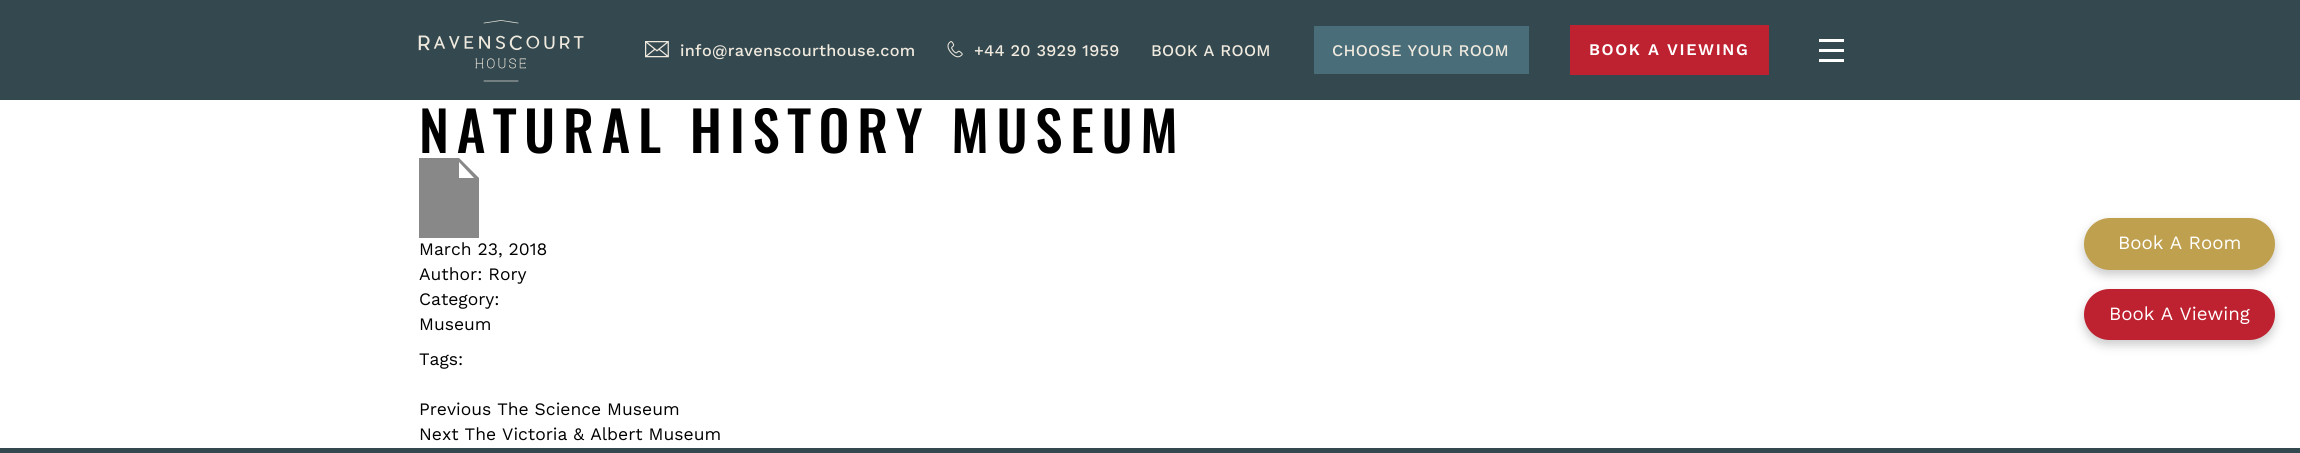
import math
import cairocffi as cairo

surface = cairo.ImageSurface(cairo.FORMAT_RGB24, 2300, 453)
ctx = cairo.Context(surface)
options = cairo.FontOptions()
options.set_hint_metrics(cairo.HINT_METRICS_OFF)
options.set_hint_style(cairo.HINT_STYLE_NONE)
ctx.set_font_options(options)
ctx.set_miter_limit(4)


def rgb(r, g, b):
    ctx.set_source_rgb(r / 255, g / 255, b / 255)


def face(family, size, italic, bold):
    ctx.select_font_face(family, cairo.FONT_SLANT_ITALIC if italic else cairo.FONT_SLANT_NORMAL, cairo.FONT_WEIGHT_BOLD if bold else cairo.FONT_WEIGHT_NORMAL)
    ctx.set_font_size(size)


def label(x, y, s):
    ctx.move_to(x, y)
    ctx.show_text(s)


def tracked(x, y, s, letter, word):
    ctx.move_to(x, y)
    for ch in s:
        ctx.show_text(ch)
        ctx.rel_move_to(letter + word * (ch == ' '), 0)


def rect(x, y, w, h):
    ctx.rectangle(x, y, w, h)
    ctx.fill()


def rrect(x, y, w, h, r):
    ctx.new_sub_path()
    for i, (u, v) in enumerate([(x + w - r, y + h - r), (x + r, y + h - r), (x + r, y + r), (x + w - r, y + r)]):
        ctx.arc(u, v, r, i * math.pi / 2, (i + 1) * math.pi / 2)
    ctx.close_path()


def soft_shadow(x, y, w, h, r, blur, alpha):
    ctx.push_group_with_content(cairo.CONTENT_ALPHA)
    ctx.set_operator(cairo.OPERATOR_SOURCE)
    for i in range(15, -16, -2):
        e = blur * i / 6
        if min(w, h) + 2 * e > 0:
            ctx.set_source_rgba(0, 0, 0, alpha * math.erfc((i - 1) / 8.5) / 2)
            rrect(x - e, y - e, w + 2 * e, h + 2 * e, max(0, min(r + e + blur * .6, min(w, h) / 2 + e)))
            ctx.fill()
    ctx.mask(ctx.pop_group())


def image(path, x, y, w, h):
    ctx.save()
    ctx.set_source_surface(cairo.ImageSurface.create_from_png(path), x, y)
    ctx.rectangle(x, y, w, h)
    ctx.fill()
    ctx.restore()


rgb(255, 255, 255)
ctx.paint()
rgb(51, 72, 79)
rect(0, 0, 2300, 100)
image('image0.png', 418, 20, 166, 62)
image('image1.png', 645, 41, 24, 17)
face('Work Sans Medium', 16.25, 0, 0)
rgb(239, 233, 222)
tracked(680, 56, 'info@ravenscourthouse.com', 0.3, 0)
image('image2.png', 947, 41, 16, 17)
tracked(974, 56, '+44 20 3929 1959', 0.3, 0)
tracked(1151, 56, 'BOOK A ROOM', 0.3, 0)
rgb(73, 110, 122)
rect(1314, 26, 215, 48)
rgb(239, 233, 222)
tracked(1332, 56, 'CHOOSE YOUR ROOM', 0.3, 0)
rgb(190, 33, 48)
rect(1570, 25, 199, 50)
face('Work Sans SemiBold', 16.25, 0, 0)
rgb(255, 255, 255)
tracked(1589, 55, 'BOOK A VIEWING', 1.6, 0)
rect(1819, 39, 25, 3)
rect(1819, 49, 25, 3)
rect(1819, 59, 25, 3)
face('Oswald Medium', 55, 0, 0)
rgb(0, 0, 0)
tracked(419, 153, 'NATURAL HISTORY MUSEUM', 7.7, 0)
rgb(136, 136, 136)
ctx.new_path()
ctx.move_to(459, 158)
ctx.line_to(419, 158)
ctx.line_to(419, 238)
ctx.line_to(479, 238)
ctx.line_to(479, 178)
ctx.close_path()
ctx.move_to(459, 178)
ctx.line_to(459, 162)
ctx.line_to(474, 178)
ctx.close_path()
ctx.fill()
face('Work Sans', 17.5, 0, 0)
rgb(0, 0, 0)
label(419, 255, 'March 23, 2018')
label(419, 280, 'Author: Rory')
label(419, 305, 'Category:')
label(419, 330, 'Museum')
label(419, 365, 'Tags:')
label(419, 415, 'Previous The Science Museum')
label(419, 440, 'Next The Victoria & Albert Museum')
rgb(0, 0, 0)
soft_shadow(2084, 223, 191, 52, 26, 5, 0.2)
rgb(191, 160, 78)
rrect(2084, 218, 191, 52, 26)
ctx.fill()
face('Work Sans', 18.75, 0, 0)
rgb(255, 255, 255)
label(2118, 249, 'Book A Room')
rgb(0, 0, 0)
soft_shadow(2084, 294, 191, 51, 25.5, 5, 0.2)
rgb(190, 33, 48)
rrect(2084, 289, 191, 51, 25.5)
ctx.fill()
rgb(255, 255, 255)
label(2109, 320, 'Book A Viewing')
rgb(51, 72, 79)
rect(0, 448, 2300, 5)
surface.write_to_png('render.png')
